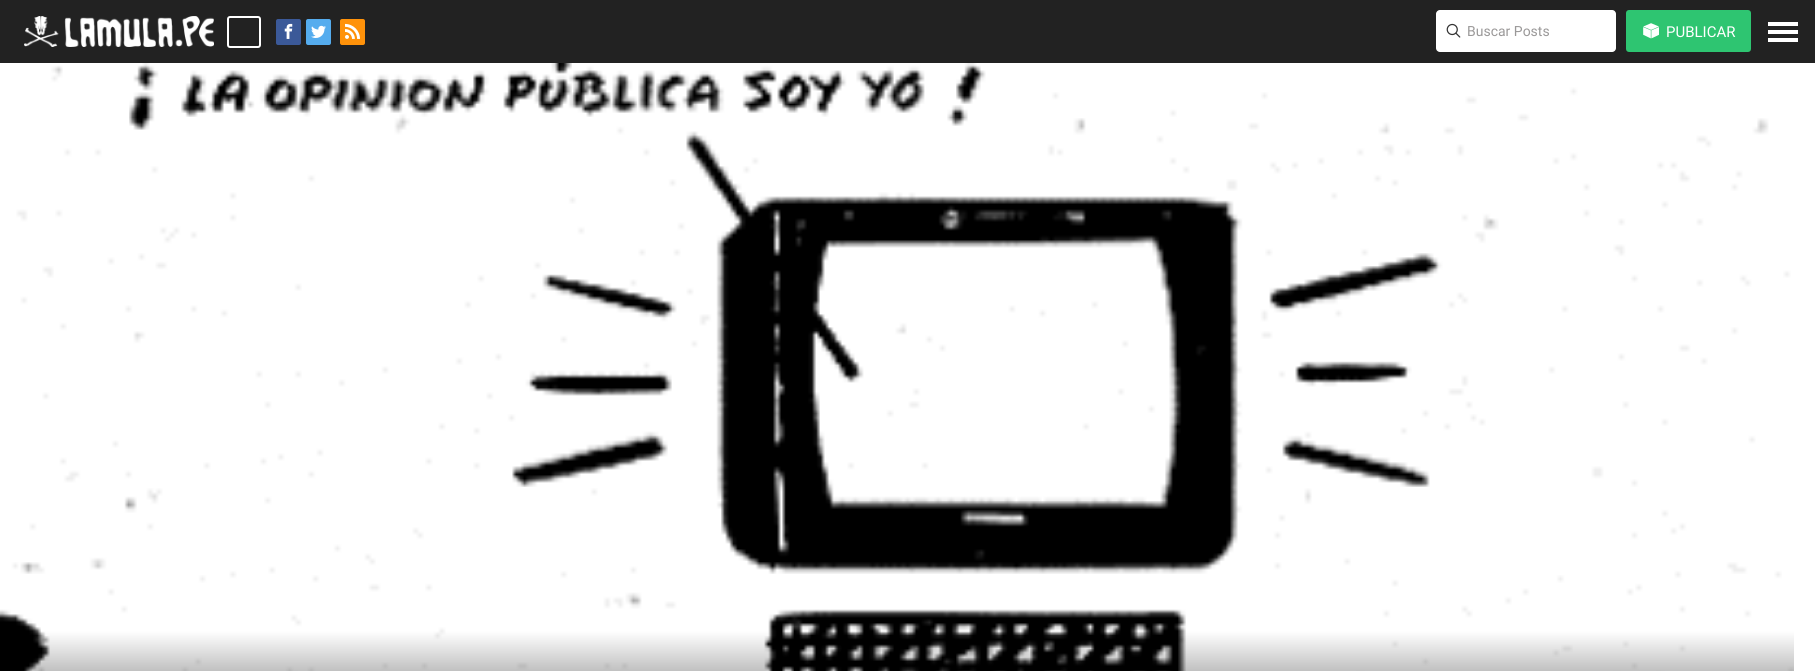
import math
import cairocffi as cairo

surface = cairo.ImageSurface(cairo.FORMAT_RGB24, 1815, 671)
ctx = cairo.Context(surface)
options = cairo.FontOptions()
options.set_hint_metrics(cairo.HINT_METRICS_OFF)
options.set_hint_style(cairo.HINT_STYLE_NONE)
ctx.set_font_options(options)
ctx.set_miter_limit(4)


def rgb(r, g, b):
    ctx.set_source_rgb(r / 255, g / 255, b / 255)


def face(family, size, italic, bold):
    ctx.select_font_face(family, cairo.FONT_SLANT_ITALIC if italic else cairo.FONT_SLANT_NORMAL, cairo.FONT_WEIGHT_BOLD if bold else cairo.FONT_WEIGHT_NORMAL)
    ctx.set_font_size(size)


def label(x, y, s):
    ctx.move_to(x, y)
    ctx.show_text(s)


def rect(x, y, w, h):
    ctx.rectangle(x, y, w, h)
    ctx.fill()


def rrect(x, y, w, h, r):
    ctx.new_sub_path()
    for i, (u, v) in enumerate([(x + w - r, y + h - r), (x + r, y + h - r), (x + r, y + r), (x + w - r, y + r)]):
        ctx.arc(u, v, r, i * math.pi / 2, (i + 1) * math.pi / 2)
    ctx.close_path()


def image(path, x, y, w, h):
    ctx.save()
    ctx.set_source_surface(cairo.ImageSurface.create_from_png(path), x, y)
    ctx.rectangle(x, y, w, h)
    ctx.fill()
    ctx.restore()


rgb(255, 255, 255)
ctx.paint()
rgb(34, 34, 34)
rect(0, 0, 1815, 63)
image('image0.png', 24, 16, 190, 31)
rrect(228, 17, 32, 30, 2)
rgb(255, 255, 255)
ctx.stroke()
rgb(59, 89, 152)
rrect(276, 19, 25, 26, 2)
ctx.fill()
image('image1.png', 284, 23, 9, 16)
rgb(85, 172, 238)
rrect(306, 19, 25, 26, 2)
ctx.fill()
image('image2.png', 311, 25, 15, 13)
rgb(255, 146, 10)
rrect(340, 19, 25, 26, 2)
ctx.fill()
image('image3.png', 345, 23, 15, 16)
rgb(255, 255, 255)
rrect(1436, 10, 180, 42, 4)
ctx.fill()
image('image4.png', 1446, 23, 15, 15)
face('Roboto', 14, 0, 0)
rgb(154, 152, 152)
label(1467, 36, 'Buscar Posts')
rgb(46, 197, 113)
rrect(1626, 10, 125, 42, 3)
ctx.fill()
image('image5.png', 1643, 23, 16, 16)
face('Roboto', 15, 0, 0)
rgb(255, 255, 255)
label(1666, 37, 'PUBLICAR')
rect(1768, 22, 30, 4)
rect(1768, 30, 30, 4)
rect(1768, 38, 30, 4)
image('image6.png', 0, 63, 1794, 608)
surface.write_to_png('render.png')
